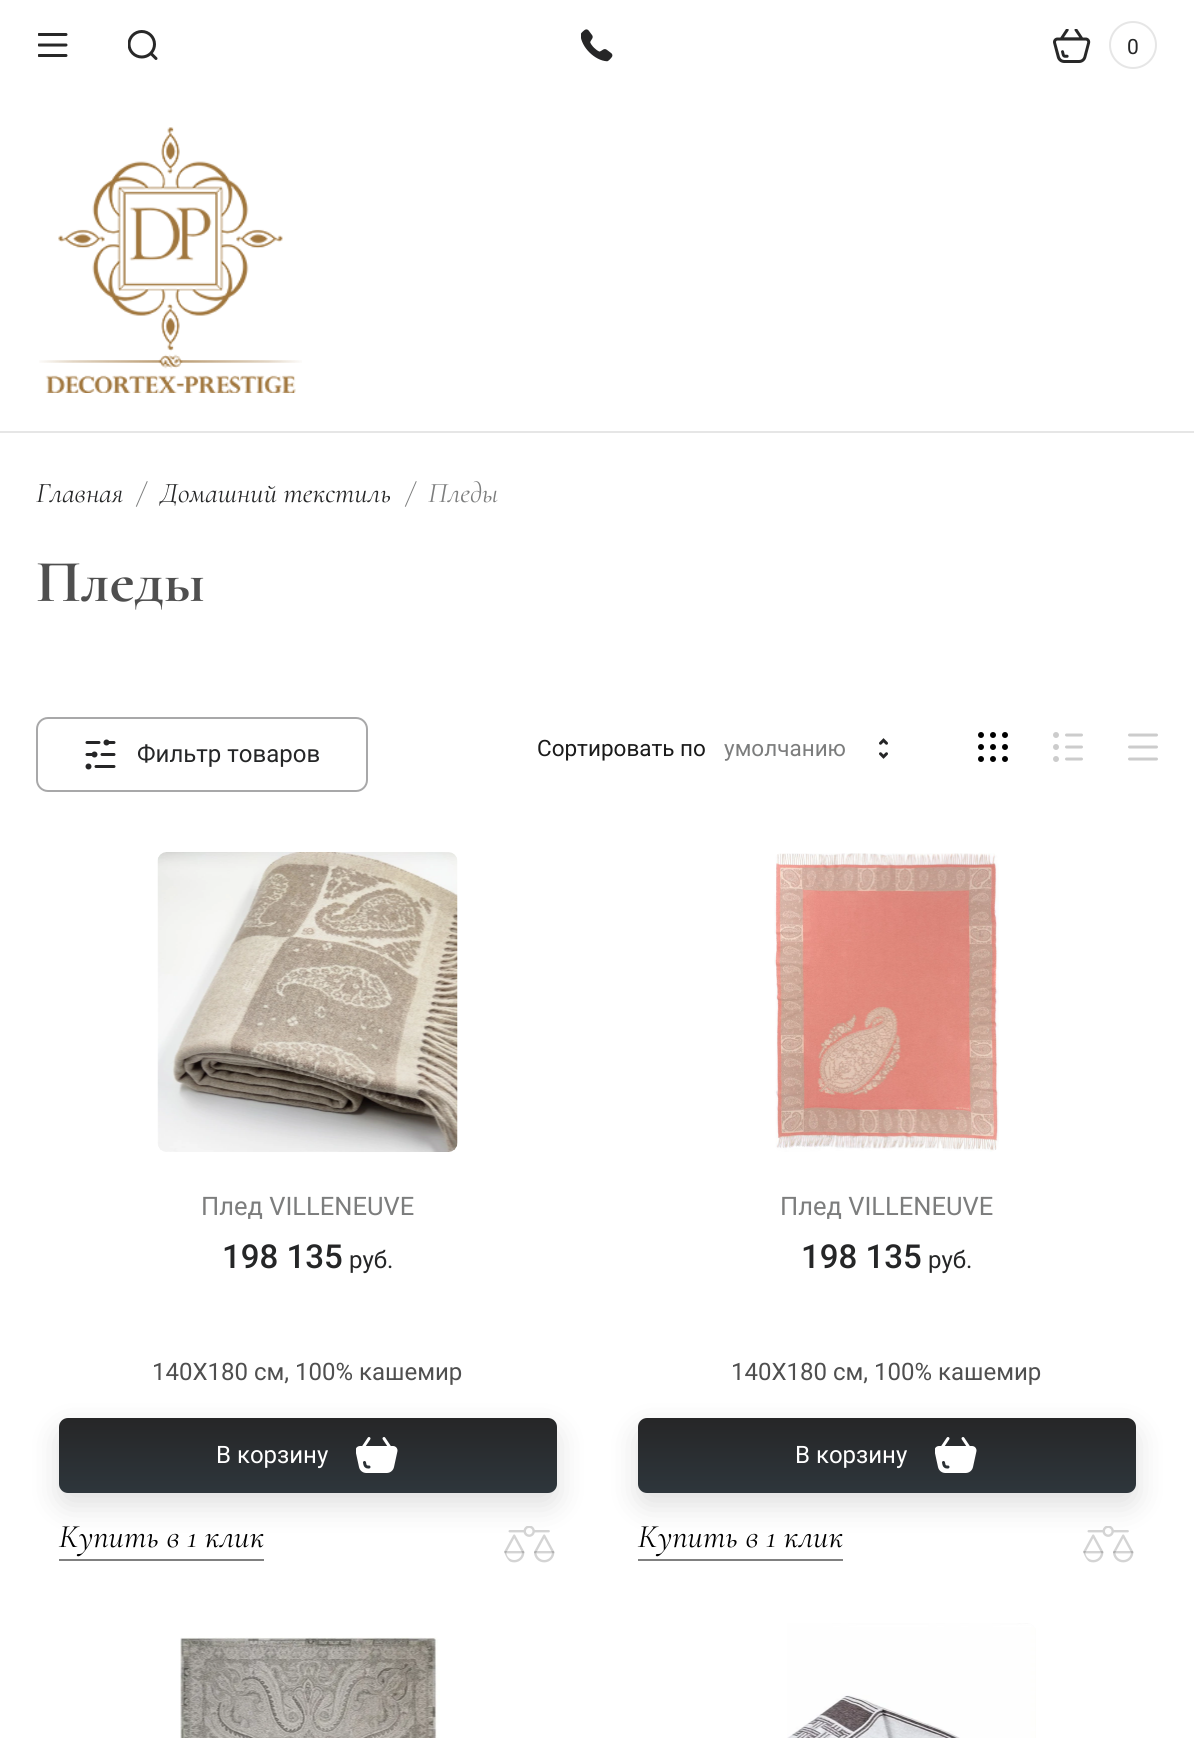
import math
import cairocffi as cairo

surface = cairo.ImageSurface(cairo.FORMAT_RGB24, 1194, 1738)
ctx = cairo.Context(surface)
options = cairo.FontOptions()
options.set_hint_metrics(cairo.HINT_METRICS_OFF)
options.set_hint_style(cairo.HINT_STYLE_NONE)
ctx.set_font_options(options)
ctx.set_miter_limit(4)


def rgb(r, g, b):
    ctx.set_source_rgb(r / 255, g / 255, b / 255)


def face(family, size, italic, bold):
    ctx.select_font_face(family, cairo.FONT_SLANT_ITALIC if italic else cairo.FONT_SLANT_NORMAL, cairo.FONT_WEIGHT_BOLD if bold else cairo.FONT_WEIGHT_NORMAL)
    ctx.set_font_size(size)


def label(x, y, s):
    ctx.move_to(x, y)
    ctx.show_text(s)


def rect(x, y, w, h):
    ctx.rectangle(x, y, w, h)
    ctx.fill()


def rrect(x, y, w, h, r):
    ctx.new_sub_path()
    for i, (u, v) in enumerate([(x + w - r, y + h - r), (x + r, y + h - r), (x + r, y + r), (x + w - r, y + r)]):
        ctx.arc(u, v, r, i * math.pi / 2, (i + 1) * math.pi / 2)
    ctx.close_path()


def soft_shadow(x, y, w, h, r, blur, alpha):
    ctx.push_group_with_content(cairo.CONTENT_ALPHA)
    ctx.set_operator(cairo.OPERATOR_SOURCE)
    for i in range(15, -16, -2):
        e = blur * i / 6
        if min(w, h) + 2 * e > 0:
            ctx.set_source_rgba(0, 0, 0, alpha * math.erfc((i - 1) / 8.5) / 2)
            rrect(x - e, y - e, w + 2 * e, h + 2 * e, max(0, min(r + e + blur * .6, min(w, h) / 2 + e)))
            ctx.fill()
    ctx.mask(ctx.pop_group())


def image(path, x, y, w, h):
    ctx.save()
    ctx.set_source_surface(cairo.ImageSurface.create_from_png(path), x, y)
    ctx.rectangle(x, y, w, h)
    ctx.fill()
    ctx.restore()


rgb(255, 255, 255)
ctx.paint()
image('image0.png', 38, 33, 30, 24)
image('image1.png', 128, 30, 30, 30)
image('image2.png', 581, 29, 32, 33)
image('image3.png', 1053, 29, 38, 34)
ctx.arc(1133, 45, 23, 0, 2 * math.pi)
rgb(230, 230, 230)
ctx.stroke()
face('Roboto', 21, 0, 0)
rgb(37, 38, 39)
label(1127, 54, '0')
image('image4.png', 39, 127, 263, 266)
rgb(230, 230, 230)
rect(0, 431, 1194, 2)
face('Cormorant', 28.5, 1, 0)
rgb(37, 38, 39)
label(36, 502, 'Главная')
rgb(124, 125, 125)
label(137, 502, '/')
ctx.save()
ctx.rectangle(36, 477, 1122, 29)
ctx.clip()
rgb(37, 38, 39)
label(160, 502, 'Домашний текстиль')
ctx.restore()
label(406, 502, '/')
label(428, 502, 'Пледы')
face('Cormorant', 60, 0, 1)
rgb(79, 79, 79)
label(36, 601, 'Пледы')
rrect(37, 718, 330, 73, 11)
rgb(168, 168, 169)
ctx.stroke()
image('image5.png', 85, 739, 31, 31)
face('Roboto', 24, 0, 0)
rgb(37, 38, 39)
label(137, 762, 'Фильтр товаров')
face('Roboto', 22.5, 0, 0)
rgb(26, 26, 26)
label(537, 756, 'Сортировать по')
rgb(124, 125, 125)
label(724, 756, 'умолчанию')
image('image6.png', 879, 738, 9, 21)
image('image7.png', 978, 732, 30, 30)
image('image8.png', 1053, 732, 30, 30)
image('image9.png', 1128, 733, 30, 28)
image('image10.png', 157, 852, 301, 300)
face('Roboto', 25.5, 0, 0)
label(201, 1215, 'Плед VILLENEUVE')
face('Roboto Medium', 33, 0, 0)
rgb(37, 38, 39)
label(222, 1268, '198 135')
face('Roboto', 24, 0, 0)
label(349, 1268, 'руб.')
rgb(79, 79, 79)
label(152, 1380, '140X180 см, 100% кашемир')
image('image12.png', 504, 1526, 51, 37)
rgb(38, 38, 39)
soft_shadow(59, 1430, 498, 75, 9, 15, 0.15)
gradient = cairo.LinearGradient(308, 1418, 308, 1493)
gradient.add_color_stop_rgba(0, 0.149, 0.149, 0.153, 1)
gradient.add_color_stop_rgba(1, 0.18, 0.212, 0.235, 1)
ctx.set_source(gradient)
rrect(59, 1418, 498, 75, 9)
ctx.fill()
rgb(255, 255, 255)
label(216, 1463, 'В корзину')
image('image11.png', 356, 1437, 42, 36)
rgb(128, 128, 128)
rect(59, 1559, 205, 2)
face('Cormorant', 33, 1, 0)
rgb(0, 0, 0)
label(59, 1547, 'Купить в 1 клик')
image('image13.png', 774, 853, 225, 299)
face('Roboto', 25.5, 0, 0)
rgb(124, 125, 125)
label(780, 1215, 'Плед VILLENEUVE')
face('Roboto Medium', 33, 0, 0)
rgb(37, 38, 39)
label(801, 1268, '198 135')
face('Roboto', 24, 0, 0)
label(928, 1268, 'руб.')
rgb(79, 79, 79)
label(731, 1380, '140X180 см, 100% кашемир')
image('image12.png', 1083, 1526, 51, 37)
rgb(38, 38, 39)
soft_shadow(638, 1430, 498, 75, 9, 15, 0.15)
gradient = cairo.LinearGradient(887, 1418, 887, 1493)
gradient.add_color_stop_rgba(0, 0.149, 0.149, 0.153, 1)
gradient.add_color_stop_rgba(1, 0.18, 0.212, 0.235, 1)
ctx.set_source(gradient)
rrect(638, 1418, 498, 75, 9)
ctx.fill()
rgb(255, 255, 255)
label(795, 1463, 'В корзину')
image('image11.png', 935, 1437, 42, 36)
rgb(128, 128, 128)
rect(638, 1559, 205, 2)
face('Cormorant', 33, 1, 0)
rgb(0, 0, 0)
label(638, 1547, 'Купить в 1 клик')
image('image14.png', 180, 1637, 260, 101)
image('image15.png', 787, 1623, 249, 115)
surface.write_to_png('render.png')
